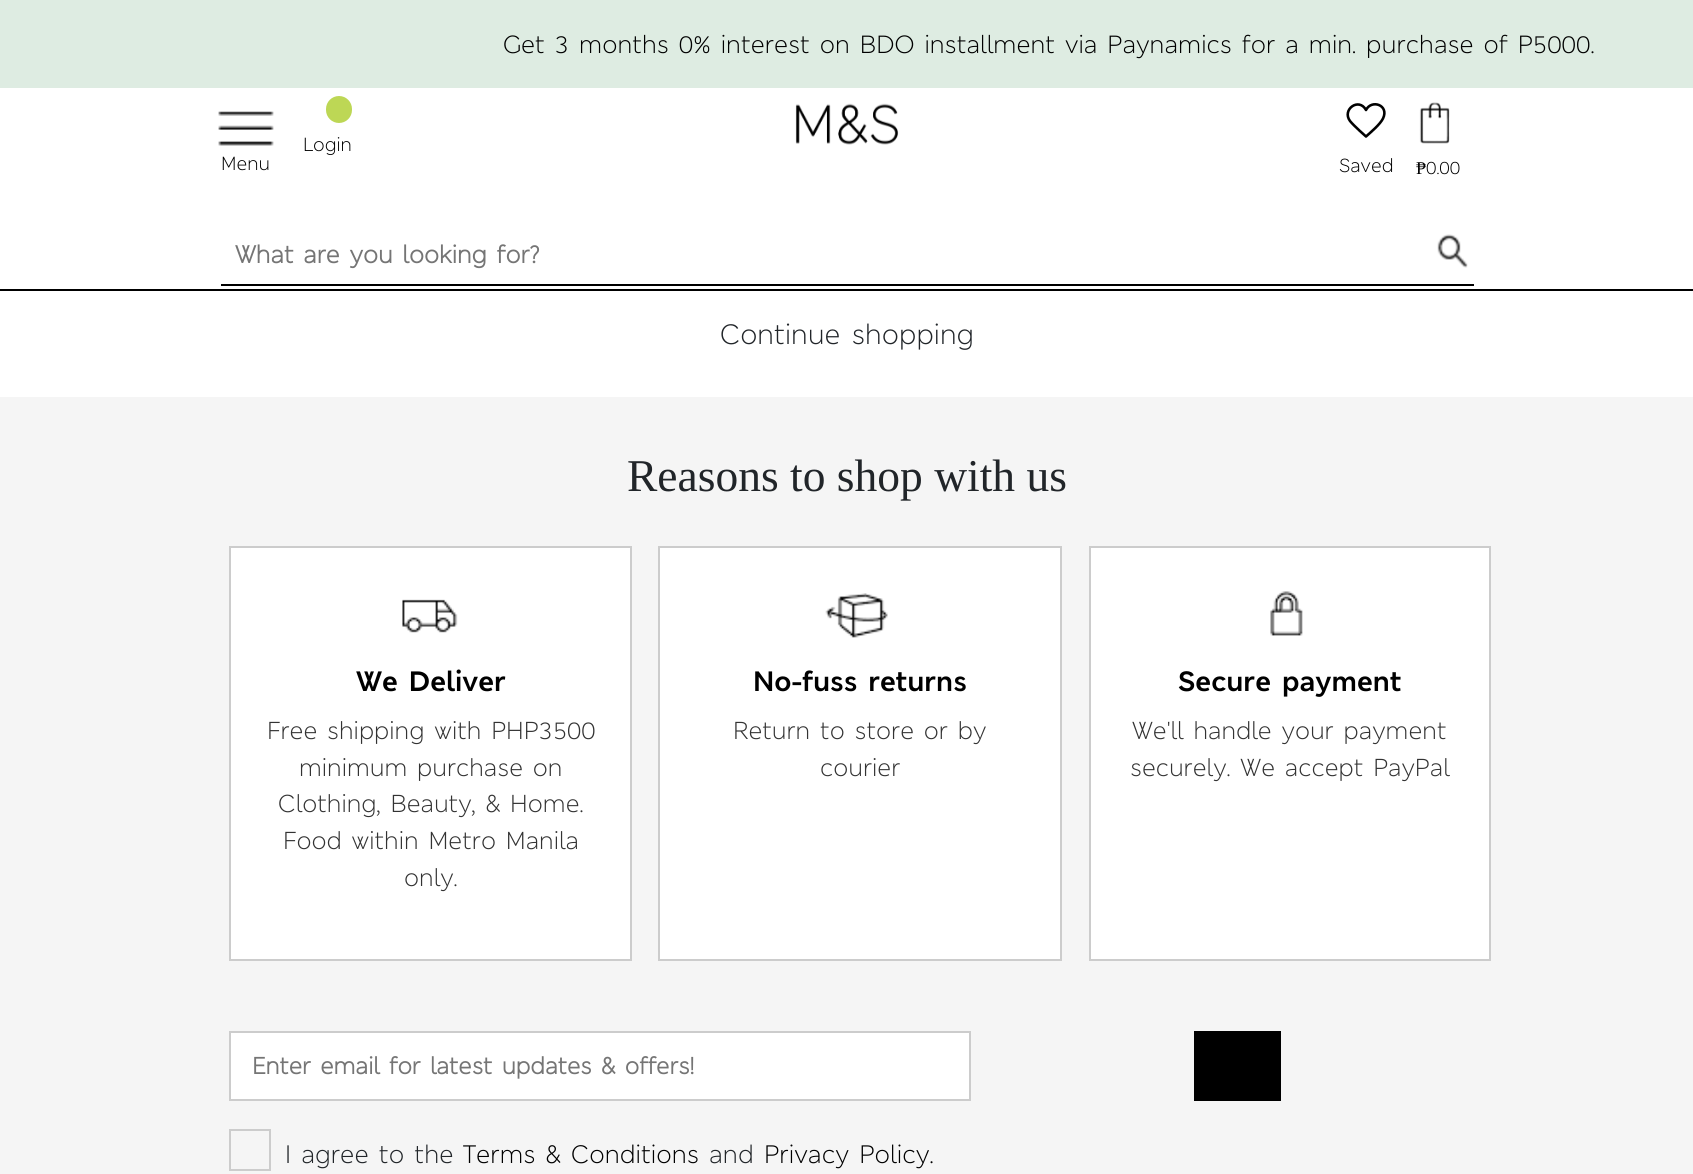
import math
import cairocffi as cairo

surface = cairo.ImageSurface(cairo.FORMAT_RGB24, 1693, 1174)
ctx = cairo.Context(surface)
options = cairo.FontOptions()
options.set_hint_metrics(cairo.HINT_METRICS_OFF)
options.set_hint_style(cairo.HINT_STYLE_NONE)
ctx.set_font_options(options)
ctx.set_miter_limit(4)


def rgb(r, g, b):
    ctx.set_source_rgb(r / 255, g / 255, b / 255)


def face(family, size, italic, bold):
    ctx.select_font_face(family, cairo.FONT_SLANT_ITALIC if italic else cairo.FONT_SLANT_NORMAL, cairo.FONT_WEIGHT_BOLD if bold else cairo.FONT_WEIGHT_NORMAL)
    ctx.set_font_size(size)


def label(x, y, s):
    ctx.move_to(x, y)
    ctx.show_text(s)


def rect(x, y, w, h):
    ctx.rectangle(x, y, w, h)
    ctx.fill()


def rrect(x, y, w, h, r):
    ctx.new_sub_path()
    for i, (u, v) in enumerate([(x + w - r, y + h - r), (x + r, y + h - r), (x + r, y + r), (x + w - r, y + r)]):
        ctx.arc(u, v, r, i * math.pi / 2, (i + 1) * math.pi / 2)
    ctx.close_path()


def image(path, x, y, w, h):
    ctx.save()
    ctx.set_source_surface(cairo.ImageSurface.create_from_png(path), x, y)
    ctx.rectangle(x, y, w, h)
    ctx.fill()
    ctx.restore()


rgb(255, 255, 255)
ctx.paint()
rgb(0, 0, 0)
rect(0, 289, 1693, 2)
rgb(222, 236, 226)
rect(0, 0, 1693, 88)
face('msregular', 24.85, 0, 0)
rgb(0, 0, 0)
label(503, 53, 'Get 3 months 0% interest on BDO installment via Paynamics for a min. purchase of P5000.')
image('image0.png', 795, 103, 104, 42)
rgb(189, 215, 85)
rrect(326, 96, 26, 27, 13)
ctx.fill()
face('msregular', 19, 0, 0)
rgb(0, 0, 0)
label(303, 151, 'Login')
image('image1.png', 218, 111, 56, 35)
label(221, 170, 'Menu')
ctx.new_path()
ctx.move_to(1350, 121)
ctx.curve_to(1341.5, 109.5, 1359, 97, 1366, 110)
ctx.curve_to(1371.5, 99, 1389.5, 105, 1383, 118.5)
ctx.curve_to(1380, 124.5, 1371, 132, 1366, 136.5)
ctx.curve_to(1366, 136.5, 1354, 126, 1350, 121)
ctx.close_path()
ctx.set_line_width(2.6)
ctx.set_line_cap(cairo.LINE_CAP_ROUND)
ctx.set_line_join(cairo.LINE_JOIN_ROUND)
ctx.stroke()
label(1339, 172, 'Saved')
image('image2.png', 1419, 102, 31, 42)
face('Liberation Serif', 18, 0, 0)
label(1416, 174, '₱')
face('msregular', 18, 0, 0)
label(1426, 174, '0.00')
rect(221, 284, 1253, 2)
face('msregular', 24.5, 0, 1)
rgb(117, 117, 117)
label(235, 263, 'What are you looking for?')
image('image3.png', 1437, 234, 31, 34)
face('msregular', 28, 0, 0)
rgb(33, 37, 41)
label(720, 344, 'Continue shopping')
rgb(245, 245, 245)
rect(0, 397, 1693, 777)
face('Liberation Serif', 45.5, 0, 0)
rgb(33, 37, 41)
label(627, 491, 'Reasons to shop with us')
rgb(255, 255, 255)
ctx.rectangle(230, 547, 401, 413)
ctx.fill_preserve()
rgb(204, 204, 204)
ctx.set_line_width(2)
ctx.set_line_cap(cairo.LINE_CAP_BUTT)
ctx.set_line_join(cairo.LINE_JOIN_MITER)
ctx.stroke()
image('image4.png', 402, 599, 56, 34)
face('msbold', 28, 0, 1)
rgb(0, 0, 0)
label(356, 691, 'We Deliver')
face('msregular', 24.5, 0, 0)
rgb(51, 51, 51)
label(267, 739, 'Free shipping with PHP3500')
label(299, 776, 'minimum purchase on')
label(278, 812, 'Clothing, Beauty, & Home.')
label(283, 849, 'Food within Metro Manila')
label(404, 886, 'only.')
rgb(255, 255, 255)
ctx.rectangle(659, 547, 402, 413)
ctx.fill_preserve()
rgb(204, 204, 204)
ctx.stroke()
image('image5.png', 825, 593, 63, 45)
face('msbold', 28, 0, 1)
rgb(0, 0, 0)
label(753, 691, 'No-fuss returns')
face('msregular', 24.5, 0, 0)
rgb(51, 51, 51)
label(733, 739, 'Return to store or by')
label(820, 776, 'courier')
rgb(255, 255, 255)
ctx.rectangle(1090, 547, 400, 413)
ctx.fill_preserve()
rgb(204, 204, 204)
ctx.stroke()
image('image6.png', 1270, 591, 33, 45)
face('msbold', 28, 0, 1)
rgb(0, 0, 0)
label(1178, 691, 'Secure payment')
face('msregular', 24.5, 0, 0)
rgb(51, 51, 51)
label(1132, 739, 'We\'ll handle your payment')
label(1130, 776, 'securely. We accept PayPal')
rgb(255, 255, 255)
ctx.rectangle(230, 1032, 740, 68)
ctx.fill_preserve()
rgb(204, 204, 204)
ctx.stroke()
face('msregular', 23.5, 0, 1)
rgb(117, 117, 117)
label(252, 1074, 'Enter email for latest updates & offers!')
rgb(0, 0, 0)
rect(1194, 1031, 87, 70)
ctx.rectangle(230, 1130, 40, 40)
rgb(204, 204, 204)
ctx.stroke()
face('msregular', 25.25, 0, 0)
rgb(33, 37, 41)
label(285, 1163, 'I agree to the')
rgb(0, 0, 0)
label(463, 1163, 'Terms & Conditions')
rgb(33, 37, 41)
label(709, 1163, 'and')
rgb(0, 0, 0)
label(764, 1163, 'Privacy Policy.')
surface.write_to_png('render.png')
